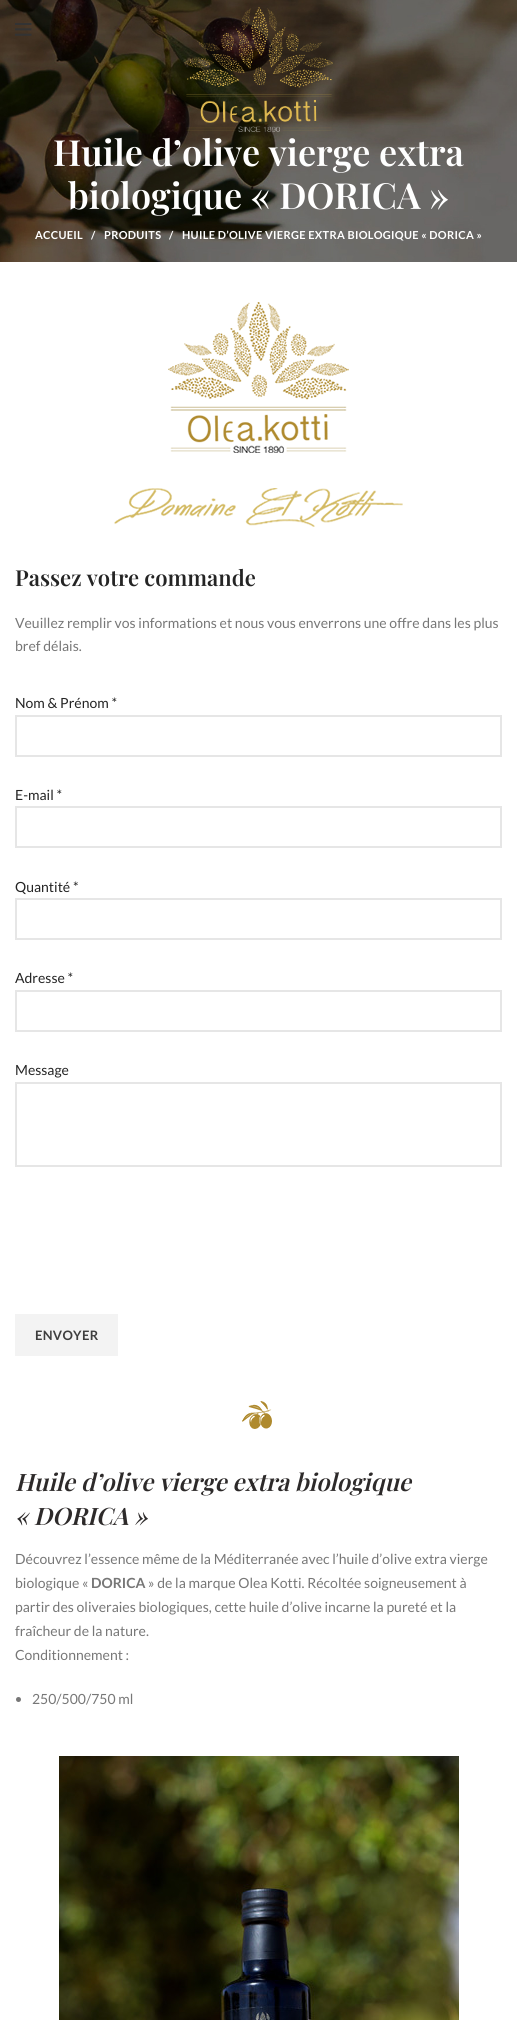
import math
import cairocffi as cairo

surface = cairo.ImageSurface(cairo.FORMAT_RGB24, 517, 2020)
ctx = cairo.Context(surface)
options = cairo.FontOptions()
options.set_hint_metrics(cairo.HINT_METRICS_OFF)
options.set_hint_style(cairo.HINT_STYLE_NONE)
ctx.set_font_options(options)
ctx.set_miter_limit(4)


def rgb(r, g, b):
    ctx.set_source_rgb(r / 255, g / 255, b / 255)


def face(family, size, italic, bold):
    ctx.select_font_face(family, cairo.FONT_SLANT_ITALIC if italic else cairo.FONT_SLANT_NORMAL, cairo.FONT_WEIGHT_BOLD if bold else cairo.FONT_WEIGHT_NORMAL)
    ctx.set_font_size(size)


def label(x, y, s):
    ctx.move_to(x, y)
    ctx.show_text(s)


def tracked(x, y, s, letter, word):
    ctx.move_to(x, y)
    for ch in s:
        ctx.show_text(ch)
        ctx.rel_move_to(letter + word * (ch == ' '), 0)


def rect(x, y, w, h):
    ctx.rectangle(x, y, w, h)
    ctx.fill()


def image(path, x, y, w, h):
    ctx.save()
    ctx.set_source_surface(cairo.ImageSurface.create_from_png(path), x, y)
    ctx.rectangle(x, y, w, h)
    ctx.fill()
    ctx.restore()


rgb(255, 255, 255)
ctx.paint()
image('image2.png', 0, 0, 517, 262)
image('image0.png', 15, 23, 17, 13)
image('image1.png', 184, 7, 149, 125)
face('Playfair Display SemiBold', 36, 0, 0)
rgb(255, 255, 255)
label(53, 166, 'Huile d’olive vierge extra')
label(68, 209, 'biologique « DORICA »')
face('Lato', 11, 0, 1)
tracked(35, 239, 'ACCUEIL', 0.3, 0)
tracked(91, 239, '/', 0.3, 0)
tracked(104, 239, 'PRODUITS', 0.3, 0)
tracked(169, 239, '/', 0.3, 0)
tracked(182, 239, 'HUILE D’OLIVE VIERGE EXTRA BIOLOGIQUE « DORICA »', 0.3, 0)
image('image3.png', 168, 302, 181, 151)
image('image4.png', 114, 488, 289, 39)
face('Playfair Display SemiBold', 22, 0, 0)
rgb(36, 36, 36)
label(15, 586, 'Passez votre commande')
face('Lato', 14, 0, 0)
rgb(119, 119, 119)
label(15, 628, 'Veuillez remplir vos informations et nous vous enverrons une offre dans les plus')
label(15, 651, 'bref délais.')
rgb(36, 36, 36)
label(15, 708, 'Nom & Prénom *')
ctx.rectangle(16, 716, 485, 40)
rgb(230, 230, 230)
ctx.stroke()
rgb(36, 36, 36)
label(15, 800, 'E-mail *')
ctx.rectangle(16, 807, 485, 40)
rgb(230, 230, 230)
ctx.stroke()
rgb(36, 36, 36)
label(15, 892, 'Quantité *')
ctx.rectangle(16, 899, 485, 40)
rgb(230, 230, 230)
ctx.stroke()
rgb(36, 36, 36)
label(15, 983, 'Adresse *')
ctx.rectangle(16, 991, 485, 40)
rgb(230, 230, 230)
ctx.stroke()
rgb(36, 36, 36)
label(15, 1075, 'Message')
ctx.rectangle(16, 1083, 485, 83)
rgb(230, 230, 230)
ctx.stroke()
rgb(243, 243, 243)
rect(15, 1314, 103, 42)
face('Lato', 13, 0, 1)
rgb(62, 62, 62)
tracked(35, 1340, 'ENVOYER', 0.3, 0)
image('image5.png', 242, 1401, 30, 28)
face('Playfair Display SemiBold', 24, 1, 0)
rgb(45, 42, 42)
label(15, 1491, 'Huile d’olive vierge extra biologique')
label(15, 1525, '« DORICA »')
face('Lato', 14, 0, 0)
rgb(119, 119, 119)
label(15, 1564, 'Découvrez l’essence même de la Méditerranée avec l’huile d’olive extra vierge')
label(15, 1588, 'biologique «')
face('Lato', 14, 0, 1)
label(91, 1588, 'DORICA')
face('Lato', 14, 0, 0)
label(148, 1588, '» de la marque Olea Kotti. Récoltée soigneusement à')
label(15, 1612, 'partir des oliveraies biologiques, cette huile d’olive incarne la pureté et la')
label(15, 1636, 'fraîcheur de la nature.')
label(15, 1660, 'Conditionnement :')
ctx.new_path()
ctx.arc(18.5, 1699.5, 2.5, 0, 2 * math.pi)
ctx.fill()
label(32, 1704, '250/500/750 ml')
image('image6.png', 59, 1756, 400, 264)
surface.write_to_png('render.png')
